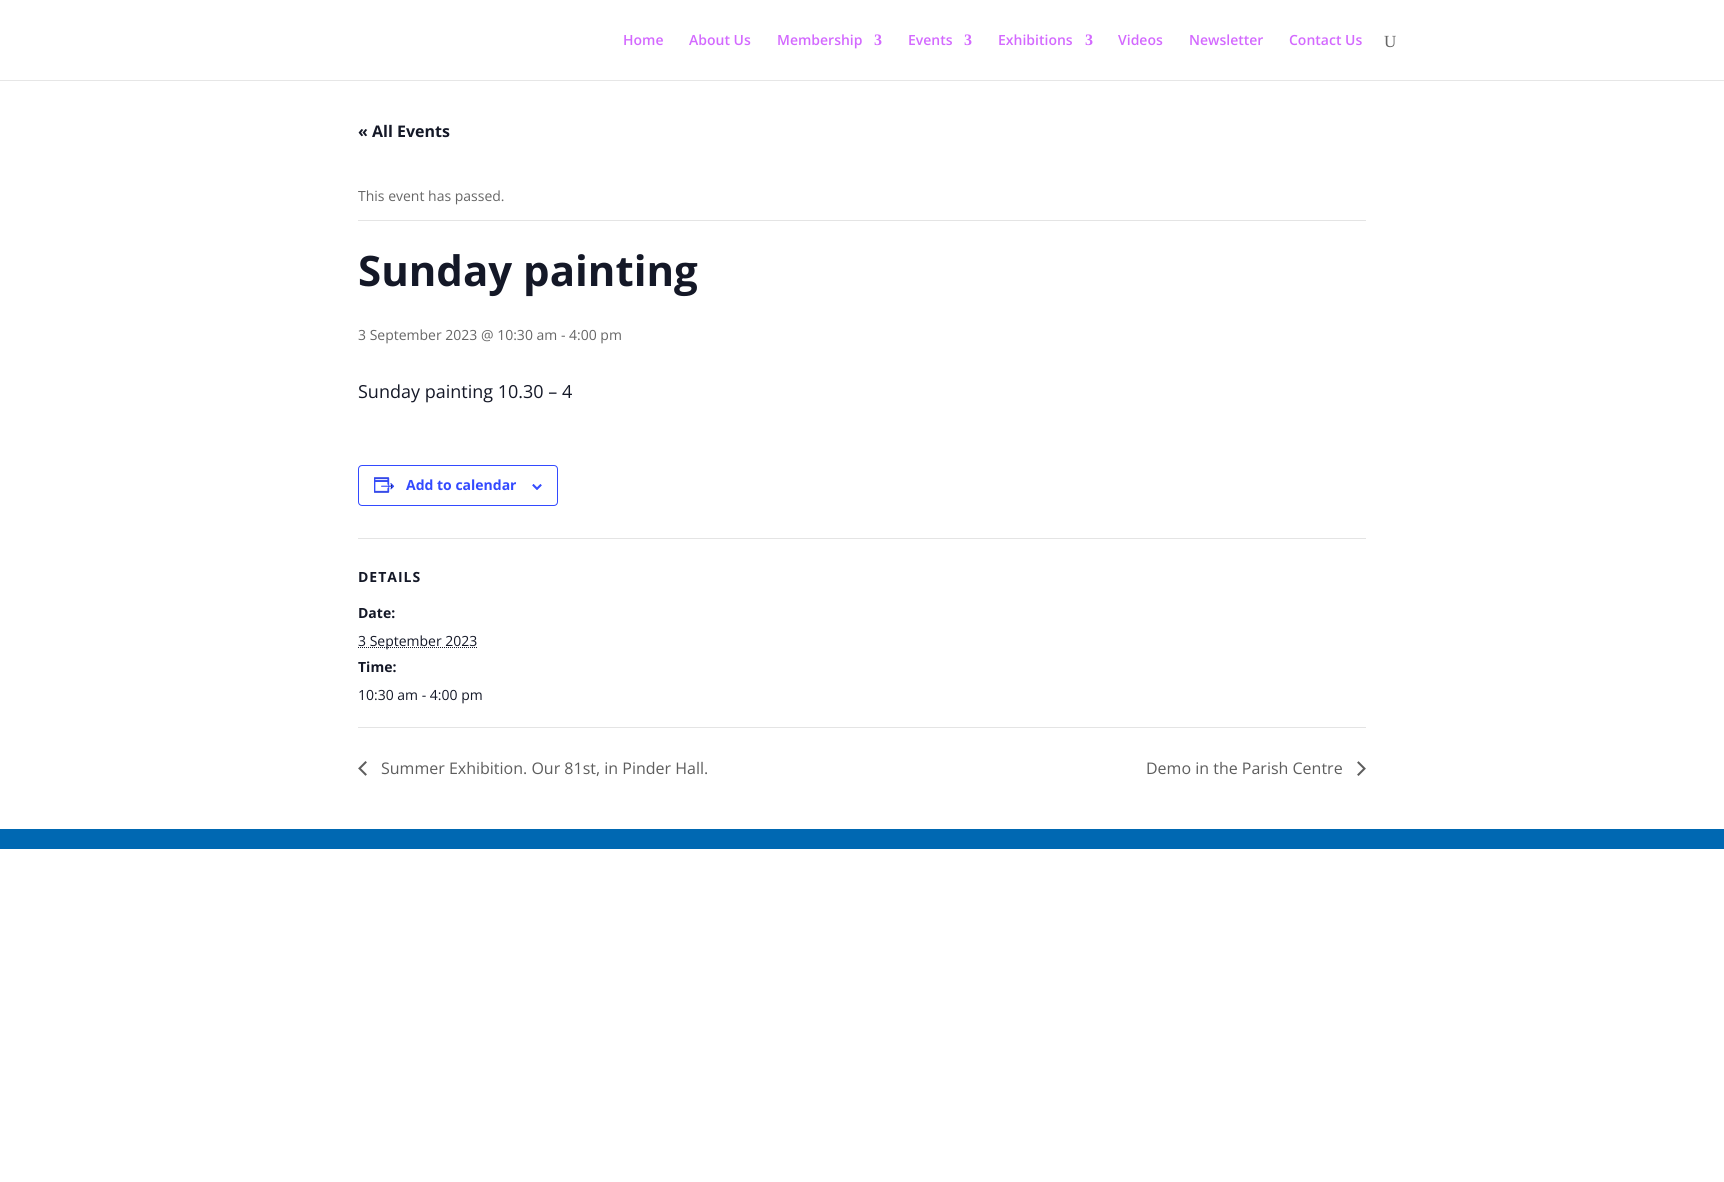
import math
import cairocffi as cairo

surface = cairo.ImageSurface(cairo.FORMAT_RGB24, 1724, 1182)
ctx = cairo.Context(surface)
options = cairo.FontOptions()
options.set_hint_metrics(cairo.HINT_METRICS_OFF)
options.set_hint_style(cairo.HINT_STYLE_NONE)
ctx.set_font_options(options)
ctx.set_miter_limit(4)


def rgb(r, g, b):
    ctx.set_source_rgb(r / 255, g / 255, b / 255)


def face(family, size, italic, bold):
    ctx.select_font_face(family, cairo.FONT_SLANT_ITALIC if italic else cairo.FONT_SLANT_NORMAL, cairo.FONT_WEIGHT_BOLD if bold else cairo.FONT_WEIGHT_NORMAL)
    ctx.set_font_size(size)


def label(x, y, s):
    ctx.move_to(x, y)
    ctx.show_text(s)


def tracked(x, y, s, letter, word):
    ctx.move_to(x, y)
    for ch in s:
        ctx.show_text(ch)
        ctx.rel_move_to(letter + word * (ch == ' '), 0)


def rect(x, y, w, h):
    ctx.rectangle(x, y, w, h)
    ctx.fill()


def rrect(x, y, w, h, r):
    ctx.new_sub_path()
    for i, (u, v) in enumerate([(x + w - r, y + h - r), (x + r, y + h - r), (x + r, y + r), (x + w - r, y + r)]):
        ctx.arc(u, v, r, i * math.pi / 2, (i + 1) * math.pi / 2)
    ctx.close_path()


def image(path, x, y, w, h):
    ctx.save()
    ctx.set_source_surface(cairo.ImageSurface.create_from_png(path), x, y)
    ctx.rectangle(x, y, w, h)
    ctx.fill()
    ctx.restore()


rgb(255, 255, 255)
ctx.paint()
rgb(230, 230, 230)
rect(0, 80, 1724, 1)
face('Open Sans SemiBold', 14, 0, 0)
rgb(211, 105, 255)
label(623, 45, 'Home')
label(689, 45, 'About Us')
label(777, 45, 'Membership')
face('Liberation Serif', 16, 0, 1)
label(874, 45, '3')
face('Open Sans SemiBold', 14, 0, 0)
label(908, 45, 'Events')
face('Liberation Serif', 16, 0, 1)
label(964, 45, '3')
face('Open Sans SemiBold', 14, 0, 0)
label(998, 45, 'Exhibitions')
face('Liberation Serif', 16, 0, 1)
label(1085, 45, '3')
face('Open Sans SemiBold', 14, 0, 0)
label(1118, 45, 'Videos')
label(1189, 45, 'Newsletter')
label(1289, 45, 'Contact Us')
face('Liberation Serif', 17, 0, 0)
rgb(102, 102, 102)
label(1384, 47, 'U')
face('Open Sans', 16, 0, 1)
rgb(20, 24, 39)
label(358, 137, '« All Events')
rgb(228, 228, 228)
rect(358, 220, 1008, 1)
face('Open Sans', 14, 0, 0)
rgb(102, 102, 102)
label(358, 201, 'This event has passed.')
face('Open Sans', 42, 0, 1)
rgb(20, 24, 39)
label(358, 286, 'Sunday painting')
face('Open Sans', 14, 0, 0)
rgb(102, 102, 102)
label(358, 340, '3 September 2023 @ 10:30 am - 4:00 pm')
face('Open Sans', 18, 0, 0)
rgb(20, 24, 39)
label(358, 398, 'Sunday painting 10.30 – 4')
rrect(358.5, 465.5, 199, 40, 3.5)
rgb(51, 74, 255)
ctx.set_line_width(1)
ctx.stroke()
image('image0.png', 374, 477, 21, 16)
face('Open Sans', 14, 0, 1)
label(406, 490, 'Add to calendar')
image('image1.png', 532, 484, 10, 6)
rgb(228, 228, 228)
rect(358, 538, 1008, 1)
rgb(20, 24, 39)
tracked(358, 582, 'DETAILS', 1, 0)
label(358, 618, 'Date:')
ctx.new_path()
ctx.move_to(358, 647.5)
ctx.line_to(477.5, 647.5)
ctx.set_dash([1, 1])
ctx.stroke()
face('Open Sans', 14, 0, 0)
label(358, 646, '3 September 2023')
face('Open Sans', 14, 0, 1)
label(358, 672, 'Time:')
face('Open Sans', 14, 0, 0)
label(358, 700, '10:30 am - 4:00 pm')
rgb(228, 228, 228)
rect(358, 727, 1008, 1)
image('image2.png', 358, 761, 9, 15)
face('Open Sans', 16, 0, 0)
rgb(93, 93, 93)
label(381, 774, 'Summer Exhibition. Our 81st, in Pinder Hall.')
label(1146, 774, 'Demo in the Parish Centre')
image('image3.png', 1357, 761, 9, 15)
rgb(0, 104, 178)
rect(0, 829, 1724, 20)
surface.write_to_png('render.png')
